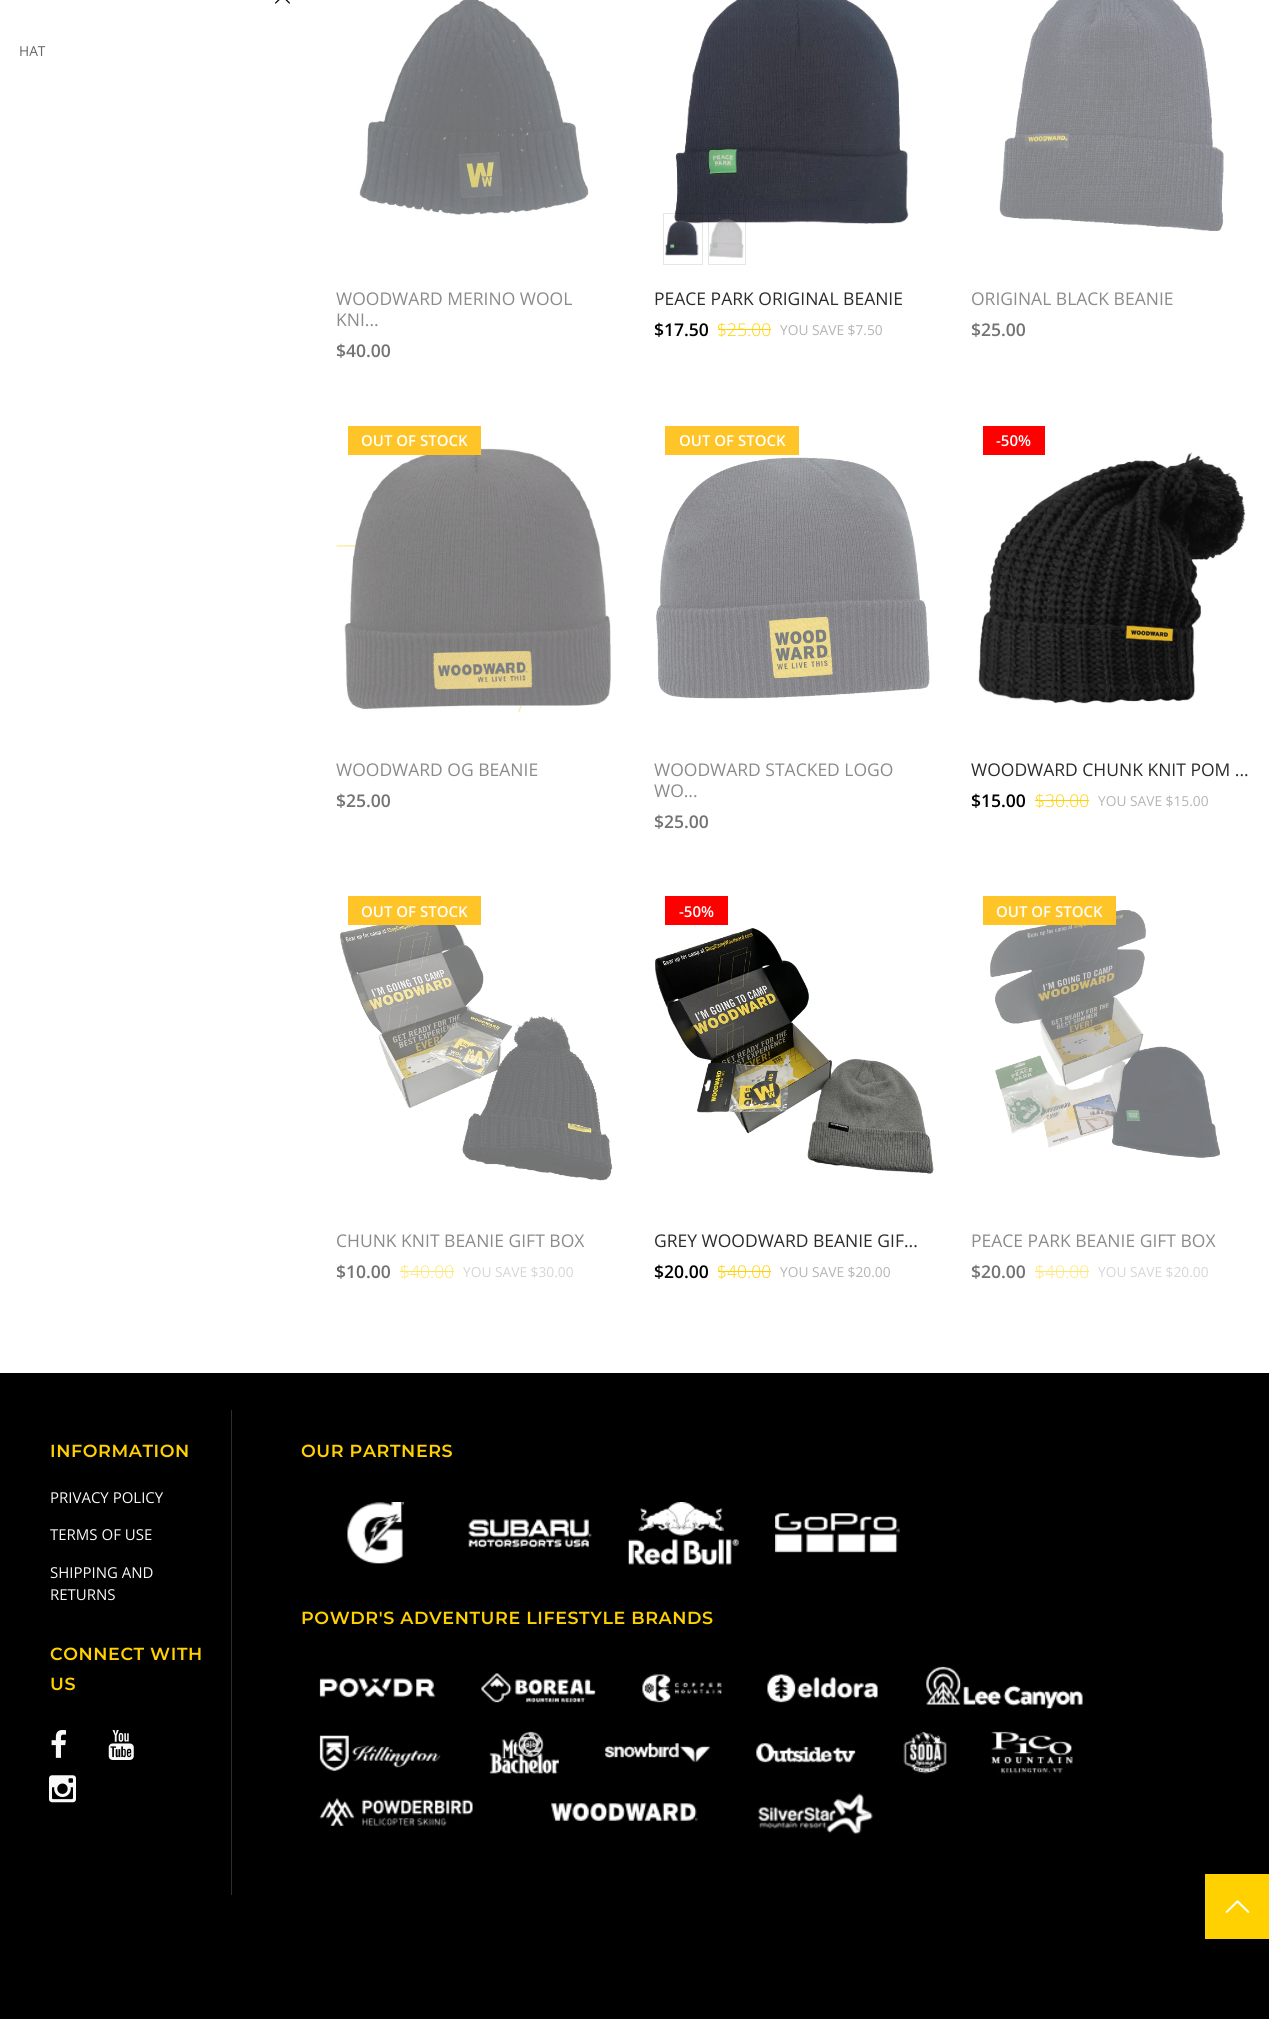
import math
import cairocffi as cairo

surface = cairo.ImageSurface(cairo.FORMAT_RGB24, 1269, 2019)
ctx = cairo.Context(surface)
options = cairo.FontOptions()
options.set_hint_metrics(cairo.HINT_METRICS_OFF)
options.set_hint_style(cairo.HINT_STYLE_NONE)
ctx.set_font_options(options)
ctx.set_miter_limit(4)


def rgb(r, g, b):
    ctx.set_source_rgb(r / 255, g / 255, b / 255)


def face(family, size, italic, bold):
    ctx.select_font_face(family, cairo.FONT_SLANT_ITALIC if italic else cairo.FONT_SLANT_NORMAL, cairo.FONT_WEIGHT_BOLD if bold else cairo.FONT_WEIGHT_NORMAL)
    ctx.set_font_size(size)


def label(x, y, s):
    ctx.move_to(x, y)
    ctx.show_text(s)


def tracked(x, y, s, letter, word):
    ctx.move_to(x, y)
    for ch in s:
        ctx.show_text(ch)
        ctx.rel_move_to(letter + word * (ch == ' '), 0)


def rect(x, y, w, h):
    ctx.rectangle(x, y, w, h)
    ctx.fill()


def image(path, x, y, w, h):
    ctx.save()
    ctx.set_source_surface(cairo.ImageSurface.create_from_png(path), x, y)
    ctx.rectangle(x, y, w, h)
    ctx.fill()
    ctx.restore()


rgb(255, 255, 255)
ctx.paint()
image('image0.png', 275, 0, 15, 4)
face('Open Sans', 13.75, 0, 0)
rgb(101, 101, 101)
label(19, 56, 'HAT')
image('image1.png', 359, 0, 230, 215)
face('Open Sans', 17.5, 0, 0)
rgb(140, 139, 139)
label(336, 305, 'WOODWARD MERINO WOOL')
label(336, 326, 'KNI...')
face('Open Sans SemiBold', 17.5, 0, 0)
rgb(115, 115, 115)
label(336, 357, '$40.00')
image('image2.png', 674, 0, 235, 224)
image('image3.png', 665, 220, 34, 36)
ctx.rectangle(663.5, 213.5, 39, 51)
ctx.set_source_rgba(0, 0, 0, 0.1)
ctx.set_line_width(1)
ctx.stroke()
image('image4.png', 709, 218, 35, 40)
ctx.rectangle(708.5, 213.5, 37, 51)
ctx.stroke()
face('Open Sans', 17.5, 0, 0)
rgb(45, 44, 44)
label(654, 305, 'PEACE PARK ORIGINAL BEANIE')
face('Open Sans SemiBold', 17.5, 0, 0)
rgb(0, 0, 0)
label(654, 336, '$17.50')
face('Open Sans Light', 17.5, 0, 0)
rgb(255, 209, 0)
label(717, 336, '$25.00')
rect(718, 329, 53, 1)
face('Open Sans', 13.75, 0, 0)
rgb(180, 180, 180)
label(780, 335, 'YOU SAVE $7.50')
image('image5.png', 999, 0, 225, 231)
face('Open Sans', 17.5, 0, 0)
rgb(140, 139, 139)
label(971, 305, 'ORIGINAL BLACK BEANIE')
face('Open Sans SemiBold', 17.5, 0, 0)
rgb(115, 115, 115)
label(971, 336, '$25.00')
image('image6.png', 336, 448, 275, 264)
rgb(255, 196, 39)
rect(348, 426, 133, 29)
face('Open Sans SemiBold', 15, 0, 0)
rgb(255, 255, 255)
label(361, 446, 'OUT OF STOCK')
face('Open Sans', 17.5, 0, 0)
rgb(140, 139, 139)
label(336, 776, 'WOODWARD OG BEANIE')
face('Open Sans SemiBold', 17.5, 0, 0)
rgb(115, 115, 115)
label(336, 807, '$25.00')
rgb(255, 196, 39)
rect(665, 426, 134, 29)
face('Open Sans SemiBold', 15, 0, 0)
rgb(255, 255, 255)
label(679, 446, 'OUT OF STOCK')
image('image7.png', 656, 457, 274, 242)
face('Open Sans', 17.5, 0, 0)
rgb(140, 139, 139)
label(654, 776, 'WOODWARD STACKED LOGO')
label(654, 797, 'WO...')
face('Open Sans SemiBold', 17.5, 0, 0)
rgb(115, 115, 115)
label(654, 828, '$25.00')
image('image8.png', 978, 452, 268, 252)
rgb(255, 0, 0)
rect(983, 426, 62, 29)
face('Open Sans SemiBold', 15, 0, 0)
rgb(255, 255, 255)
label(996, 446, '-50%')
face('Open Sans', 17.5, 0, 0)
rgb(45, 44, 44)
label(971, 776, 'WOODWARD CHUNK KNIT POM ...')
face('Open Sans SemiBold', 17.5, 0, 0)
rgb(0, 0, 0)
label(971, 807, '$15.00')
face('Open Sans Light', 17.5, 0, 0)
rgb(255, 209, 0)
label(1035, 807, '$30.00')
rect(1035, 800, 54, 1)
face('Open Sans', 13.75, 0, 0)
rgb(180, 180, 180)
label(1098, 806, 'YOU SAVE $15.00')
rgb(255, 196, 39)
rect(348, 896, 133, 29)
face('Open Sans SemiBold', 15, 0, 0)
rgb(255, 255, 255)
label(361, 917, 'OUT OF STOCK')
image('image9.png', 340, 925, 273, 256)
face('Open Sans', 17.5, 0, 0)
rgb(140, 139, 139)
label(336, 1247, 'CHUNK KNIT BEANIE GIFT BOX')
face('Open Sans SemiBold', 17.5, 0, 0)
rgb(115, 115, 115)
label(336, 1278, '$10.00')
face('Open Sans Light', 17.5, 0, 0)
rgb(255, 230, 115)
label(400, 1278, '$40.00')
rect(400, 1271, 54, 1)
face('Open Sans', 13.75, 0, 0)
rgb(214, 214, 214)
label(463, 1277, 'YOU SAVE $30.00')
rgb(255, 0, 0)
rect(665, 896, 63, 29)
face('Open Sans SemiBold', 15, 0, 0)
rgb(255, 255, 255)
label(679, 917, '-50%')
image('image10.png', 655, 928, 279, 246)
face('Open Sans', 17.5, 0, 0)
rgb(45, 44, 44)
label(654, 1247, 'GREY WOODWARD BEANIE GIF...')
face('Open Sans SemiBold', 17.5, 0, 0)
rgb(0, 0, 0)
label(654, 1278, '$20.00')
face('Open Sans Light', 17.5, 0, 0)
rgb(255, 209, 0)
label(717, 1278, '$40.00')
rect(718, 1271, 53, 1)
face('Open Sans', 13.75, 0, 0)
rgb(180, 180, 180)
label(780, 1277, 'YOU SAVE $20.00')
image('image11.png', 990, 909, 230, 249)
rgb(255, 196, 39)
rect(983, 896, 133, 29)
face('Open Sans SemiBold', 15, 0, 0)
rgb(255, 255, 255)
label(996, 917, 'OUT OF STOCK')
face('Open Sans', 17.5, 0, 0)
rgb(140, 139, 139)
label(971, 1247, 'PEACE PARK BEANIE GIFT BOX')
face('Open Sans SemiBold', 17.5, 0, 0)
rgb(115, 115, 115)
label(971, 1278, '$20.00')
face('Open Sans Light', 17.5, 0, 0)
rgb(255, 230, 115)
label(1035, 1278, '$40.00')
rect(1035, 1271, 54, 1)
face('Open Sans', 13.75, 0, 0)
rgb(214, 214, 214)
label(1098, 1277, 'YOU SAVE $20.00')
rgb(0, 0, 0)
rect(0, 1373, 1269, 646)
face('Montserrat SemiBold', 17.5, 0, 0)
rgb(255, 209, 0)
tracked(50, 1457, 'INFORMATION', 0.6, 0)
face('Open Sans', 15, 0, 0)
rgb(249, 249, 249)
label(50, 1503, 'PRIVACY POLICY')
label(50, 1540, 'TERMS OF USE')
label(50, 1578, 'SHIPPING AND')
label(50, 1600, 'RETURNS')
rgb(46, 47, 47)
rect(231, 1410, 1, 485)
face('Montserrat SemiBold', 17.5, 0, 0)
rgb(255, 209, 0)
tracked(50, 1660, 'CONNECT WITH', 0.6, 0)
tracked(50, 1690, 'US', 0.6, 0)
image('image12.png', 51, 1730, 16, 28)
image('image13.png', 108, 1730, 26, 30)
image('image14.png', 49, 1775, 27, 28)
tracked(301, 1457, 'OUR PARTNERS', 0.6, 0)
image('image15.png', 347, 1502, 57, 62)
image('image16.png', 468, 1519, 124, 29)
image('image17.png', 628, 1502, 111, 63)
image('image18.png', 775, 1513, 125, 40)
tracked(301, 1624, 'POWDR\'S ADVENTURE LIFESTYLE BRANDS', 0.6, 0)
image('image19.png', 319, 1678, 117, 20)
image('image20.png', 481, 1673, 115, 30)
image('image21.png', 642, 1674, 80, 29)
image('image22.png', 767, 1674, 111, 29)
image('image23.png', 926, 1666, 159, 43)
image('image24.png', 319, 1735, 122, 36)
image('image25.png', 489, 1731, 70, 43)
image('image26.png', 604, 1743, 107, 20)
image('image27.png', 756, 1743, 100, 20)
image('image28.png', 903, 1731, 44, 43)
image('image29.png', 991, 1731, 82, 43)
image('image30.png', 319, 1798, 154, 29)
image('image31.png', 551, 1802, 147, 20)
image('image32.png', 757, 1793, 116, 42)
rect(1205, 1874, 64, 65)
image('image33.png', 1225, 1900, 25, 13)
surface.write_to_png('render.png')
